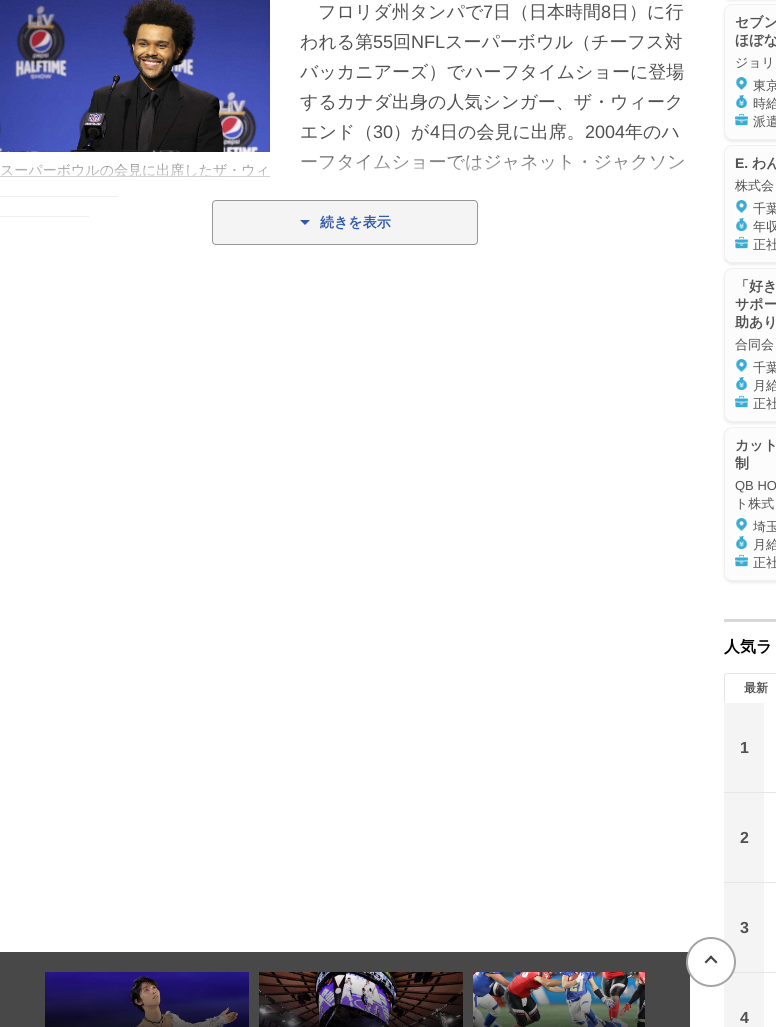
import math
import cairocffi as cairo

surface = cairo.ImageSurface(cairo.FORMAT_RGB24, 776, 1027)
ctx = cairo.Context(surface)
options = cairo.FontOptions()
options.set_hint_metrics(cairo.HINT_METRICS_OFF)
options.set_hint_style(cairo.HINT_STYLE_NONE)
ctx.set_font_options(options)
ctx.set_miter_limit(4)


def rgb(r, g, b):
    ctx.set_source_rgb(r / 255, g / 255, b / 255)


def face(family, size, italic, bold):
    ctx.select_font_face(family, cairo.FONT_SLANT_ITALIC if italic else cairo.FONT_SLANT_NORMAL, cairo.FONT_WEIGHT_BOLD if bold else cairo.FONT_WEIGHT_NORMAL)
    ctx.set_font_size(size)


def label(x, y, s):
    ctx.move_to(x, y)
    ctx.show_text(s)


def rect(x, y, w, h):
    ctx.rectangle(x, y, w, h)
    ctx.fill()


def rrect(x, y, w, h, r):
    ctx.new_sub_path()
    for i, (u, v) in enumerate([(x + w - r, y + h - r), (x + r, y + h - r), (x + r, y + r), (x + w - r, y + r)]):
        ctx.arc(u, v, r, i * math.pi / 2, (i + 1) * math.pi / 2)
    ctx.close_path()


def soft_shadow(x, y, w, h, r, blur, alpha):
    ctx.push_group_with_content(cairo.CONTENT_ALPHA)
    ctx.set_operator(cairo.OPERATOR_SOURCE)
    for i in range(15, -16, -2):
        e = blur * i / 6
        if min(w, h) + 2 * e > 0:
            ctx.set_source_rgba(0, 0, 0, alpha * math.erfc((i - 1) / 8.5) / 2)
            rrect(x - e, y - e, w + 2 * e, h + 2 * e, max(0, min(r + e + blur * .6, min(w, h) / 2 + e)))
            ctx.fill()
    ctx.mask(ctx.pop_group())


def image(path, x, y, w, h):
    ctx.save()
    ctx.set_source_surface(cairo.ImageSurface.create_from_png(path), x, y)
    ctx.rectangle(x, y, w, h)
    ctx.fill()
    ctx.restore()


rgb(255, 255, 255)
ctx.paint()
image('image0.png', 0, 0, 270, 152)
rgb(79, 79, 79)
rect(0, 176, 270, 1)
face('WenQuanYi Zen Hei Medium', 14, 0, 0)
rgb(81, 81, 81)
label(0, 175, 'スーパーボウルの会見に出席したザ・ウィ')
rgb(79, 79, 79)
rect(0, 196, 118, 1)
rect(0, 216, 89, 1)
face('WenQuanYi Zen Hei Medium', 18, 0, 0)
rgb(81, 81, 81)
label(318, 18, 'フロリダ州タンパで')
face('Liberation Sans', 18, 0, 0)
label(483, 18, '7')
face('WenQuanYi Zen Hei Medium', 18, 0, 0)
label(493, 18, '日（日本時間')
face('Liberation Sans', 18, 0, 0)
label(601, 18, '8')
face('WenQuanYi Zen Hei Medium', 18, 0, 0)
label(611, 18, '日）に行')
label(300, 48, 'われる第')
face('Liberation Sans', 18, 0, 0)
label(373, 48, '55')
face('WenQuanYi Zen Hei Medium', 18, 0, 0)
label(393, 48, '回')
face('Liberation Sans', 18, 0, 0)
label(411, 48, 'NFL')
face('WenQuanYi Zen Hei Medium', 18, 0, 0)
label(445, 48, 'スーパーボウル（チーフス対')
label(300, 78, 'バッカニアーズ）でハーフタイムショーに登場')
label(300, 108, 'するカナダ出身の人気シンガー、ザ・ウィーク')
label(300, 138, 'エンド（')
face('Liberation Sans', 18, 0, 0)
label(373, 138, '30')
face('WenQuanYi Zen Hei Medium', 18, 0, 0)
label(393, 138, '）が')
face('Liberation Sans', 18, 0, 0)
label(430, 138, '4')
face('WenQuanYi Zen Hei Medium', 18, 0, 0)
label(440, 138, '日の会見に出席。')
face('Liberation Sans', 18, 0, 0)
label(585, 138, '2004')
face('WenQuanYi Zen Hei Medium', 18, 0, 0)
label(625, 138, '年のハ')
label(300, 168, 'ーフタイムショーではジャネット・ジャクソン')
gradient = cairo.LinearGradient(345, 152, 345, 252)
gradient.add_color_stop_rgba(0, 1, 1, 1, 0)
gradient.add_color_stop_rgba(0.3, 1, 1, 1, 0.9)
ctx.set_source(gradient)
rect(0, 155, 684, 62)
rgb(244, 244, 244)
rrect(212.5, 200.5, 265, 44, 3.5)
ctx.fill_preserve()
rgb(151, 151, 151)
ctx.set_line_width(1)
ctx.stroke()
rgb(46, 89, 174)
ctx.new_path()
ctx.move_to(300, 220)
ctx.line_to(310, 220)
ctx.line_to(305, 225)
ctx.close_path()
ctx.fill()
face('WenQuanYi Zen Hei', 14, 0, 1)
label(320, 227, '続きを表示')
rgb(72, 72, 72)
rect(0, 952, 690, 75)
image('image1.png', 45, 972, 204, 55)
image('image2.png', 259, 972, 204, 55)
image('image3.png', 473, 972, 172, 55)
rgb(0, 0, 0)
soft_shadow(724, -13, 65, 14, 8, 1.5, 0.08)
soft_shadow(724, 6, 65, 136, 8, 1.5, 0.08)
rgb(252, 252, 252)
rrect(724.5, 4.5, 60, 135, 7.5)
ctx.fill_preserve()
rgb(240, 240, 240)
ctx.stroke()
rgb(81, 81, 81)
label(735, 27, 'セブン')
label(735, 45, 'ほぼな')
face('WenQuanYi Zen Hei Medium', 13, 0, 0)
label(735, 67, 'ジョリ')
image('image4.png', 735, 77, 13, 13)
label(753, 90, '東京')
image('image5.png', 735, 95, 13, 13)
label(753, 108, '時給')
image('image6.png', 735, 113, 13, 13)
label(753, 126, '派遣')
rgb(0, 0, 0)
soft_shadow(724, 147, 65, 118, 8, 1.5, 0.08)
rgb(252, 252, 252)
rrect(724.5, 145.5, 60, 117, 7.5)
ctx.fill_preserve()
rgb(240, 240, 240)
ctx.stroke()
face('Liberation Sans', 14, 0, 1)
rgb(81, 81, 81)
label(735, 168, 'E.')
face('WenQuanYi Zen Hei', 14, 0, 1)
label(752, 168, 'わん')
face('WenQuanYi Zen Hei Medium', 13, 0, 0)
label(735, 190, '株式会')
image('image4.png', 735, 200, 13, 13)
label(753, 213, '千葉')
image('image7.png', 735, 218, 13, 13)
label(753, 231, '年収')
image('image6.png', 735, 236, 13, 13)
label(753, 249, '正社')
rgb(0, 0, 0)
soft_shadow(724, 270, 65, 154, 8, 1.5, 0.08)
rgb(252, 252, 252)
rrect(724.5, 268.5, 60, 153, 7.5)
ctx.fill_preserve()
rgb(240, 240, 240)
ctx.stroke()
face('WenQuanYi Zen Hei', 14, 0, 1)
rgb(81, 81, 81)
label(735, 291, '「好き')
label(735, 309, 'サポー')
label(735, 327, '助あり')
face('WenQuanYi Zen Hei Medium', 13, 0, 0)
label(735, 349, '合同会')
image('image4.png', 735, 359, 13, 13)
label(753, 372, '千葉')
image('image7.png', 735, 377, 13, 13)
label(753, 390, '月給')
image('image6.png', 735, 395, 13, 13)
label(753, 408, '正社')
rgb(0, 0, 0)
soft_shadow(724, 429, 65, 154, 8, 1.5, 0.08)
rgb(252, 252, 252)
rrect(724.5, 427.5, 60, 153, 7.5)
ctx.fill_preserve()
rgb(240, 240, 240)
ctx.stroke()
face('WenQuanYi Zen Hei', 14, 0, 1)
rgb(81, 81, 81)
label(735, 450, 'カット')
label(735, 468, '制')
face('Liberation Sans', 13, 0, 0)
label(735, 490, 'QB HO')
face('WenQuanYi Zen Hei Medium', 13, 0, 0)
label(735, 508, 'ト株式')
image('image4.png', 735, 518, 13, 13)
label(753, 531, '埼玉')
image('image7.png', 735, 536, 13, 13)
label(753, 549, '月給')
image('image6.png', 735, 554, 13, 13)
label(753, 567, '正社')
rgb(216, 216, 216)
rect(724, 619, 52, 3)
face('WenQuanYi Zen Hei', 16, 0, 1)
rgb(0, 0, 0)
label(724, 652, '人気ラ')
rgb(230, 230, 230)
ctx.new_path()
ctx.move_to(727, 673)
ctx.line_to(725, 674)
ctx.line_to(726, 675)
ctx.line_to(727, 674)
ctx.line_to(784, 674)
ctx.line_to(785, 675)
ctx.line_to(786, 674)
ctx.line_to(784, 673)
ctx.close_path()
ctx.fill()
ctx.new_path()
ctx.move_to(724, 703)
ctx.line_to(725, 702)
ctx.line_to(725, 676)
ctx.line_to(725.5, 674.5)
ctx.line_to(725, 674)
ctx.curve_to(724, 674, 724, 675, 724, 676)
ctx.close_path()
ctx.fill()
face('WenQuanYi Zen Hei', 12, 0, 1)
rgb(81, 81, 81)
label(744, 692, '最新')
rgb(230, 230, 230)
rect(724, 792, 52, 1)
rgb(244, 244, 244)
rect(724, 703, 40, 89)
face('Liberation Sans', 16, 0, 1)
rgb(81, 81, 81)
label(740, 753, '1')
rgb(230, 230, 230)
rect(724, 882, 52, 1)
rgb(244, 244, 244)
rect(724, 793, 40, 89)
rgb(81, 81, 81)
label(740, 843, '2')
rgb(230, 230, 230)
rect(733, 972, 43, 1)
rgb(244, 244, 244)
rect(724, 883, 40, 89)
rgb(81, 81, 81)
label(740, 933, '3')
rgb(244, 244, 244)
rect(724, 973, 40, 54)
rgb(81, 81, 81)
label(740, 1023, '4')
rgb(255, 255, 255)
ctx.new_path()
ctx.arc(711, 962, 24, 0, 2 * math.pi)
ctx.fill_preserve()
rgb(164, 164, 164)
ctx.set_line_width(2)
ctx.stroke()
rgb(67, 67, 67)
ctx.new_path()
ctx.move_to(704.5, 962)
ctx.line_to(711, 955.5)
ctx.line_to(712.5, 957)
ctx.line_to(706, 963.5)
ctx.close_path()
ctx.fill()
ctx.new_path()
ctx.move_to(709.5, 957)
ctx.line_to(711, 955.5)
ctx.line_to(717.5, 962)
ctx.line_to(716, 963.5)
ctx.close_path()
ctx.fill()
surface.write_to_png('render.png')
